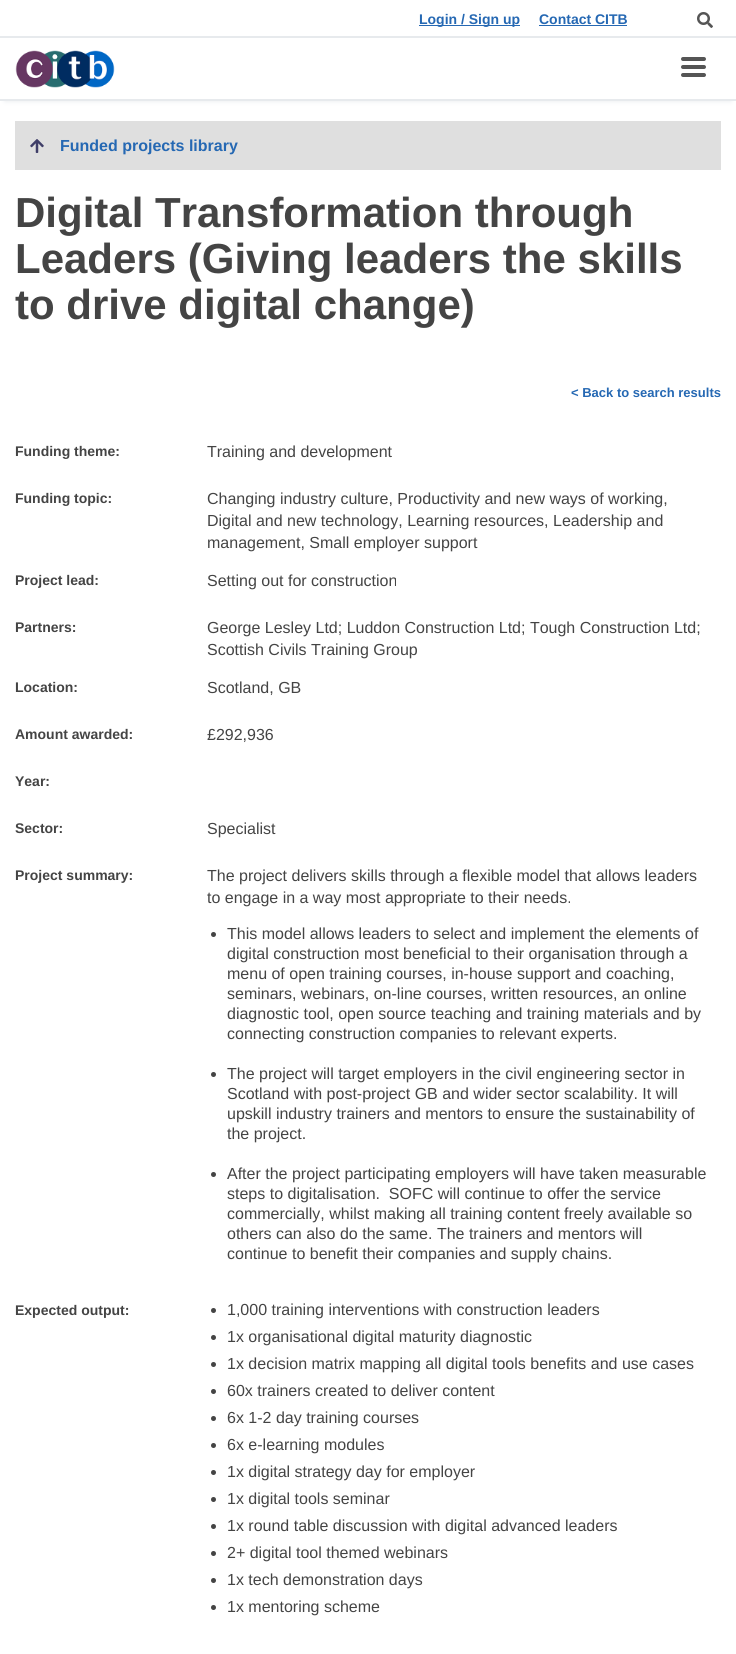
import math
import cairocffi as cairo

surface = cairo.ImageSurface(cairo.FORMAT_RGB24, 736, 1654)
ctx = cairo.Context(surface)
options = cairo.FontOptions()
options.set_hint_metrics(cairo.HINT_METRICS_OFF)
options.set_hint_style(cairo.HINT_STYLE_NONE)
ctx.set_font_options(options)
ctx.set_miter_limit(4)


def rgb(r, g, b):
    ctx.set_source_rgb(r / 255, g / 255, b / 255)


def face(family, size, italic, bold):
    ctx.select_font_face(family, cairo.FONT_SLANT_ITALIC if italic else cairo.FONT_SLANT_NORMAL, cairo.FONT_WEIGHT_BOLD if bold else cairo.FONT_WEIGHT_NORMAL)
    ctx.set_font_size(size)


def label(x, y, s):
    ctx.move_to(x, y)
    ctx.show_text(s)


def rect(x, y, w, h):
    ctx.rectangle(x, y, w, h)
    ctx.fill()


def rrect(x, y, w, h, r):
    ctx.new_sub_path()
    for i, (u, v) in enumerate([(x + w - r, y + h - r), (x + r, y + h - r), (x + r, y + r), (x + w - r, y + r)]):
        ctx.arc(u, v, r, i * math.pi / 2, (i + 1) * math.pi / 2)
    ctx.close_path()


def soft_shadow(x, y, w, h, r, blur, alpha):
    ctx.push_group_with_content(cairo.CONTENT_ALPHA)
    ctx.set_operator(cairo.OPERATOR_SOURCE)
    for i in range(15, -16, -2):
        e = blur * i / 6
        if min(w, h) + 2 * e > 0:
            ctx.set_source_rgba(0, 0, 0, alpha * math.erfc((i - 1) / 8.5) / 2)
            rrect(x - e, y - e, w + 2 * e, h + 2 * e, max(0, min(r + e + blur * .6, min(w, h) / 2 + e)))
            ctx.fill()
    ctx.mask(ctx.pop_group())


def image(path, x, y, w, h):
    ctx.save()
    ctx.set_source_surface(cairo.ImageSurface.create_from_png(path), x, y)
    ctx.rectangle(x, y, w, h)
    ctx.fill()
    ctx.restore()


rgb(255, 255, 255)
ctx.paint()
ctx.save()
ctx.rectangle(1, 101, 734, 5)
ctx.clip()
rgb(231, 234, 237)
soft_shadow(5, 10, 726, 91, 0, 2.5, 1)
ctx.restore()
rgb(231, 234, 237)
rect(0, 99, 736, 2)
rect(0, 36, 736, 2)
rgb(37, 104, 179)
rect(419, 25, 101, 1)
face('Liberation Sans', 14, 0, 1)
label(419, 24, 'Login / Sign up')
label(539, 24, 'Contact CITB')
rect(539, 25, 88, 1)
image('image0.png', 697, 12, 16, 16)
image('image1.png', 15, 50, 100, 38)
rgb(85, 85, 85)
rrect(681, 65, 25, 4, 2)
ctx.fill()
rrect(681, 57, 25, 4, 2)
ctx.fill()
rrect(681, 73, 25, 4, 2)
ctx.fill()
rgb(223, 223, 223)
rect(15, 121, 706, 49)
image('image2.png', 30, 139, 14, 14)
face('Liberation Sans', 16, 0, 1)
rgb(37, 104, 179)
label(60, 151, 'Funded projects library')
face('Liberation Sans', 42, 0, 1)
rgb(68, 68, 68)
label(15, 227, 'Digital Transformation through')
label(15, 273, 'Leaders (Giving leaders the skills')
label(15, 319, 'to drive digital change)')
face('Liberation Sans', 13, 0, 1)
rgb(37, 104, 179)
label(571, 397, '< Back to search results')
face('Liberation Sans', 14, 0, 1)
rgb(68, 68, 68)
label(15, 456, 'Funding theme:')
face('Liberation Sans', 16, 0, 0)
label(207, 457, 'Training and development')
face('Liberation Sans', 14, 0, 1)
label(15, 503, 'Funding topic:')
face('Liberation Sans', 16, 0, 0)
label(207, 504, 'Changing industry culture, Productivity and new ways of working,')
label(207, 526, 'Digital and new technology, Learning resources, Leadership and')
label(207, 548, 'management, Small employer support')
face('Liberation Sans', 14, 0, 1)
label(15, 585, 'Project lead:')
face('Liberation Sans', 16, 0, 0)
label(207, 586, 'Setting out for construction')
face('Liberation Sans', 14, 0, 1)
label(15, 632, 'Partners:')
face('Liberation Sans', 16, 0, 0)
label(207, 633, 'George Lesley Ltd; Luddon Construction Ltd; Tough Construction Ltd;')
label(207, 655, 'Scottish Civils Training Group')
face('Liberation Sans', 14, 0, 1)
label(15, 692, 'Location:')
face('Liberation Sans', 16, 0, 0)
label(207, 693, 'Scotland, GB')
face('Liberation Sans', 14, 0, 1)
label(15, 739, 'Amount awarded:')
face('Liberation Sans', 16, 0, 0)
label(207, 740, '£292,936')
face('Liberation Sans', 14, 0, 1)
label(15, 786, 'Year:')
label(15, 833, 'Sector:')
face('Liberation Sans', 16, 0, 0)
label(207, 834, 'Specialist')
face('Liberation Sans', 14, 0, 1)
label(15, 880, 'Project summary:')
face('Liberation Sans', 16, 0, 0)
label(207, 881, 'The project delivers skills through a flexible model that allows leaders')
label(207, 903, 'to engage in a way most appropriate to their needs.')
ctx.new_path()
ctx.arc(213.5, 934.5, 2.5, 0, 2 * math.pi)
ctx.fill()
label(227, 939, 'This model allows leaders to select and implement the elements of')
label(227, 959, 'digital construction most beneficial to their organisation through a')
label(227, 979, 'menu of open training courses, in-house support and coaching,')
label(227, 999, 'seminars, webinars, on-line courses, written resources, an online')
label(227, 1019, 'diagnostic tool, open source teaching and training materials and by')
label(227, 1039, 'connecting construction companies to relevant experts.')
ctx.new_path()
ctx.arc(213.5, 1074.5, 2.5, 0, 2 * math.pi)
ctx.fill()
label(227, 1079, 'The project will target employers in the civil engineering sector in')
label(227, 1099, 'Scotland with post-project GB and wider sector scalability. It will')
label(227, 1119, 'upskill industry trainers and mentors to ensure the sustainability of')
label(227, 1139, 'the project.')
ctx.new_path()
ctx.arc(213.5, 1174.5, 2.5, 0, 2 * math.pi)
ctx.fill()
label(227, 1179, 'After the project participating employers will have taken measurable')
label(227, 1199, 'steps to digitalisation.  SOFC will continue to offer the service')
label(227, 1219, 'commercially, whilst making all training content freely available so')
label(227, 1239, 'others can also do the same. The trainers and mentors will')
label(227, 1259, 'continue to benefit their companies and supply chains.')
face('Liberation Sans', 14, 0, 1)
label(15, 1315, 'Expected output:')
ctx.new_path()
ctx.arc(213.5, 1310.5, 2.5, 0, 2 * math.pi)
ctx.fill()
face('Liberation Sans', 16, 0, 0)
label(227, 1315, '1,000 training interventions with construction leaders')
ctx.new_path()
ctx.arc(213.5, 1337.5, 2.5, 0, 2 * math.pi)
ctx.fill()
label(227, 1342, '1x organisational digital maturity diagnostic')
ctx.new_path()
ctx.arc(213.5, 1364.5, 2.5, 0, 2 * math.pi)
ctx.fill()
label(227, 1369, '1x decision matrix mapping all digital tools benefits and use cases')
ctx.new_path()
ctx.arc(213.5, 1391.5, 2.5, 0, 2 * math.pi)
ctx.fill()
label(227, 1396, '60x trainers created to deliver content')
ctx.new_path()
ctx.arc(213.5, 1418.5, 2.5, 0, 2 * math.pi)
ctx.fill()
label(227, 1423, '6x 1-2 day training courses')
ctx.new_path()
ctx.arc(213.5, 1445.5, 2.5, 0, 2 * math.pi)
ctx.fill()
label(227, 1450, '6x e-learning modules')
ctx.new_path()
ctx.arc(213.5, 1472.5, 2.5, 0, 2 * math.pi)
ctx.fill()
label(227, 1477, '1x digital strategy day for employer')
ctx.new_path()
ctx.arc(213.5, 1499.5, 2.5, 0, 2 * math.pi)
ctx.fill()
label(227, 1504, '1x digital tools seminar')
ctx.new_path()
ctx.arc(213.5, 1526.5, 2.5, 0, 2 * math.pi)
ctx.fill()
label(227, 1531, '1x round table discussion with digital advanced leaders')
ctx.new_path()
ctx.arc(213.5, 1553.5, 2.5, 0, 2 * math.pi)
ctx.fill()
label(227, 1558, '2+ digital tool themed webinars')
ctx.new_path()
ctx.arc(213.5, 1580.5, 2.5, 0, 2 * math.pi)
ctx.fill()
label(227, 1585, '1x tech demonstration days')
ctx.new_path()
ctx.arc(213.5, 1607.5, 2.5, 0, 2 * math.pi)
ctx.fill()
label(227, 1612, '1x mentoring scheme')
surface.write_to_png('render.png')
